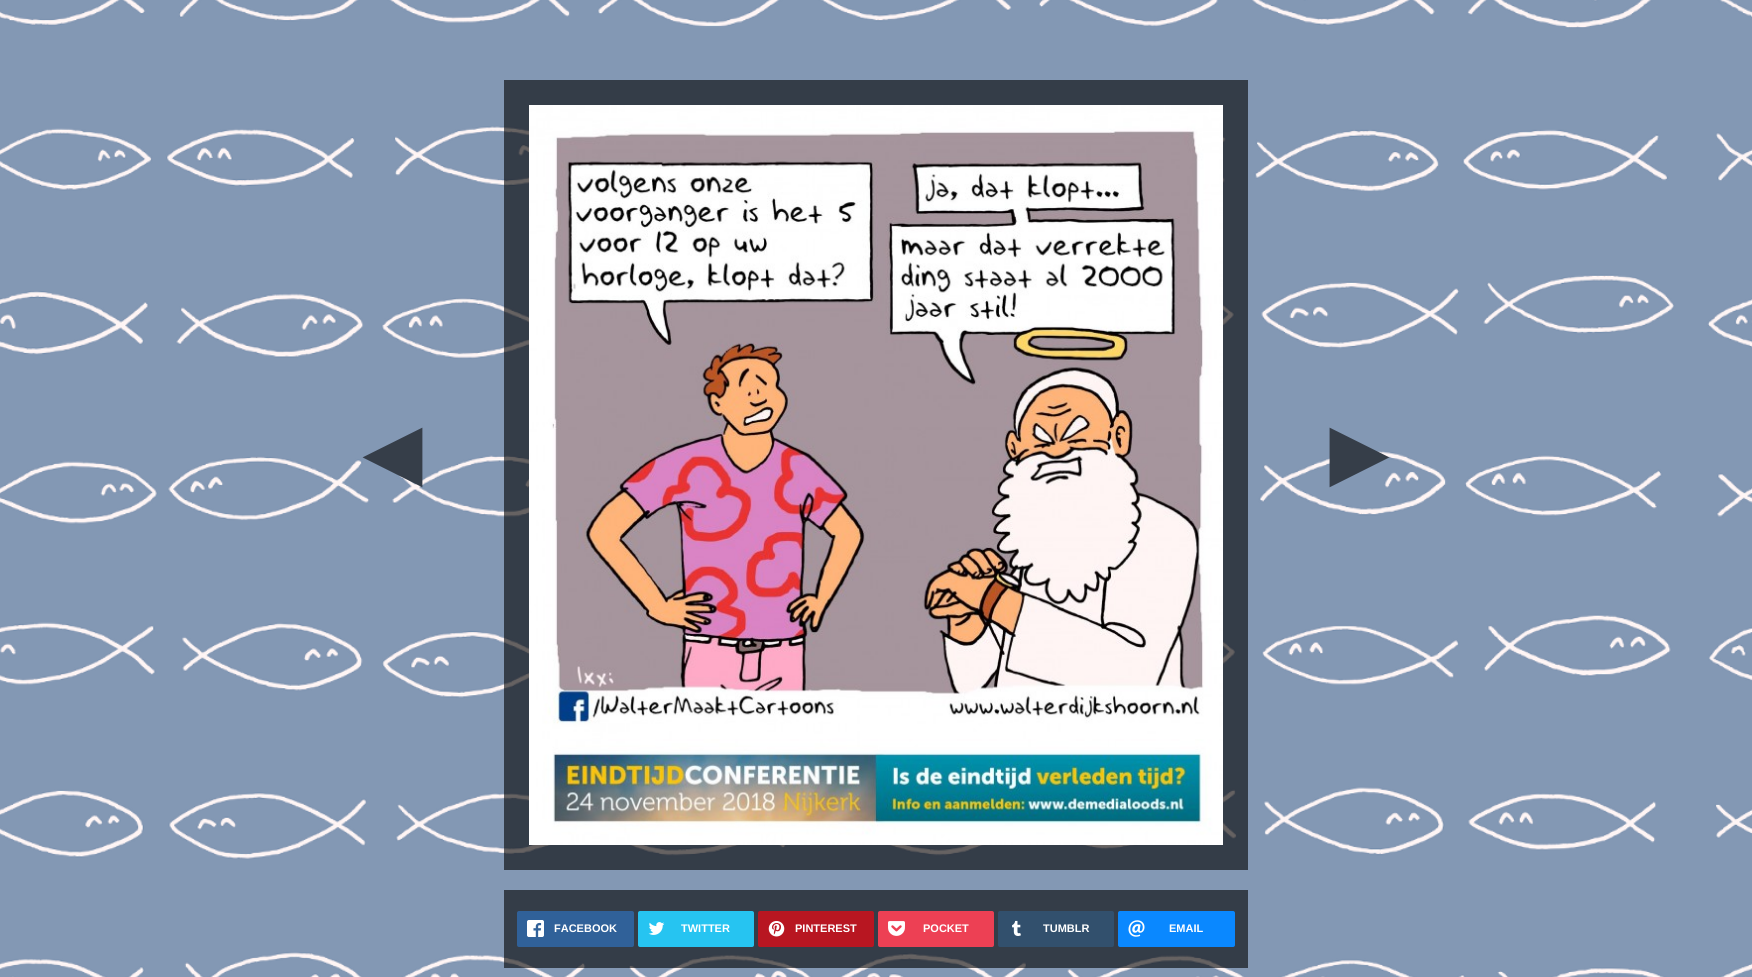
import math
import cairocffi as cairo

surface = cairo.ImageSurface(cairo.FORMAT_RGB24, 1752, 977)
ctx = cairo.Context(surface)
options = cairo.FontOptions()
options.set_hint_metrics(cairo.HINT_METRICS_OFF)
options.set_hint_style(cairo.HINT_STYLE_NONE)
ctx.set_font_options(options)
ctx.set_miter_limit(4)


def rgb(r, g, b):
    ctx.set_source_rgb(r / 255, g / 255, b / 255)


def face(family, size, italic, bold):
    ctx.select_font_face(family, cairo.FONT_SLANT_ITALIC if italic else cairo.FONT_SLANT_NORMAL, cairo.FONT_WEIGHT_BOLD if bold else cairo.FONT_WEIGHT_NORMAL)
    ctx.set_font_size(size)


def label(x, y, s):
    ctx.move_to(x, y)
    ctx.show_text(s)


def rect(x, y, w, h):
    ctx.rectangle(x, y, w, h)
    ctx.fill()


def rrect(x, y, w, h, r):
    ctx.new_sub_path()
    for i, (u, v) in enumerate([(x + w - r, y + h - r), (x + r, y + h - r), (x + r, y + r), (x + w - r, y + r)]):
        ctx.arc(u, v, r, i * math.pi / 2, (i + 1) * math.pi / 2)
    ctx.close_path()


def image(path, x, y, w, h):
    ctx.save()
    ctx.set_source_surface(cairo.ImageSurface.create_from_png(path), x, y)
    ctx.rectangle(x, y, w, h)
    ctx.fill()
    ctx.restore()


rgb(255, 255, 255)
ctx.paint()
image('image0.png', 0, 0, 1752, 977)
face('Liberation Sans', 100, 0, 0)
rgb(54, 62, 73)
label(343, 486, '◄')
ctx.set_source_rgba(0, 0, 0, 0.6)
rect(504, 80, 744, 790)
image('image1.png', 529, 105, 694, 740)
rgb(54, 62, 73)
label(1310, 486, '►')
ctx.set_source_rgba(0, 0, 0, 0.6)
rect(504, 890, 744, 78)
rgb(48, 97, 153)
rrect(517, 911, 117, 36, 2)
ctx.fill()
image('image2.png', 527, 920, 17, 17)
face('Liberation Sans', 11, 0, 1)
rgb(255, 255, 255)
label(554, 932, 'FACEBOOK')
rgb(38, 196, 241)
rrect(638, 911, 116, 36, 2)
ctx.fill()
image('image3.png', 648, 922, 17, 13)
rgb(255, 255, 255)
label(681, 932, 'TWITTER')
rgb(184, 22, 33)
rrect(758, 911, 116, 36, 2)
ctx.fill()
image('image4.png', 768, 921, 17, 16)
rgb(255, 255, 255)
label(795, 932, 'PINTEREST')
rgb(237, 64, 84)
rrect(878, 911, 116, 36, 2)
ctx.fill()
image('image5.png', 888, 921, 17, 15)
rgb(255, 255, 255)
label(923, 932, 'POCKET')
rgb(50, 80, 109)
rrect(998, 911, 116, 36, 2)
ctx.fill()
image('image6.png', 1012, 920, 9, 16)
rgb(255, 255, 255)
label(1043, 932, 'TUMBLR')
rgb(10, 136, 255)
rrect(1118, 911, 117, 36, 2)
ctx.fill()
image('image7.png', 1128, 920, 17, 17)
rgb(255, 255, 255)
label(1169, 932, 'EMAIL')
surface.write_to_png('render.png')
